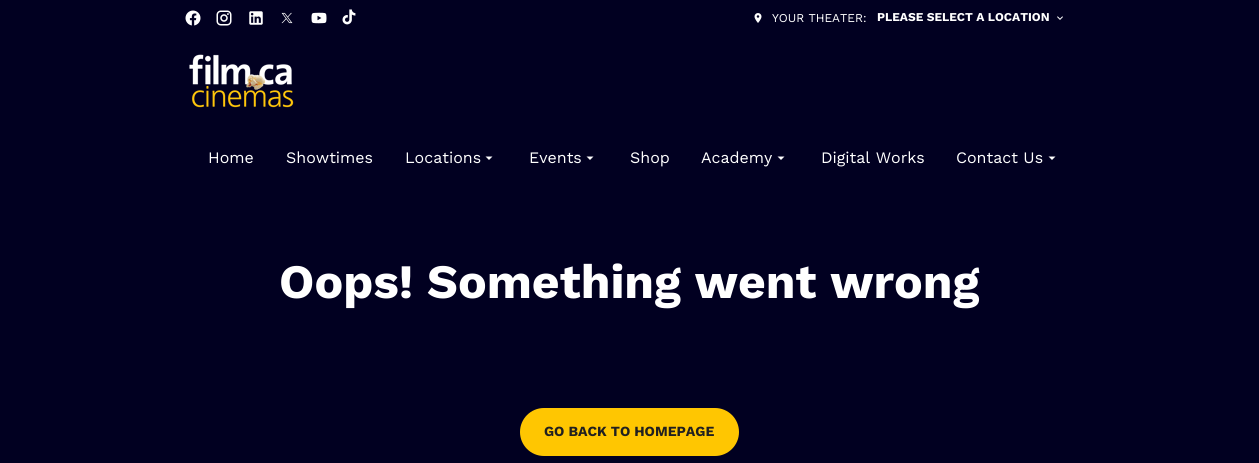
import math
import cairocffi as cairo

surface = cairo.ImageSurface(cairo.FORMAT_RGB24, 1259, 463)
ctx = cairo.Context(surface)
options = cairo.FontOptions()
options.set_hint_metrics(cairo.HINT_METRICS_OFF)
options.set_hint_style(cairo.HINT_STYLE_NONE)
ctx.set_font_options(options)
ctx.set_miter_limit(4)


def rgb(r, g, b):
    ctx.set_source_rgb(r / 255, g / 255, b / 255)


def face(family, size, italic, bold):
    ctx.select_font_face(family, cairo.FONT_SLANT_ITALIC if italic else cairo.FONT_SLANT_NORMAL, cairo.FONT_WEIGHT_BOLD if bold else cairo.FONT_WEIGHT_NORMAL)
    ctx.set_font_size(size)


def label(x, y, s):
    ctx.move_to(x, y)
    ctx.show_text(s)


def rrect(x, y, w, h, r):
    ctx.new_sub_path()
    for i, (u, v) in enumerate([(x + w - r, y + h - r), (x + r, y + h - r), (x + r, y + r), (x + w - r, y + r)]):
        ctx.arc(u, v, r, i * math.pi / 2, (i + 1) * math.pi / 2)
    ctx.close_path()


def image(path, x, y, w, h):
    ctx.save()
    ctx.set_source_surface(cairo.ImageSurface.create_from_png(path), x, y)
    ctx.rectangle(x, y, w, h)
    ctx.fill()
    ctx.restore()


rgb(1, 0, 33)
ctx.paint()
image('image0.png', 185, 10, 16, 16)
image('image1.png', 216, 10, 16, 16)
image('image2.png', 249, 11, 14, 14)
image('image3.png', 281, 12, 12, 12)
image('image4.png', 311, 12, 16, 12)
image('image5.png', 342, 9, 14, 16)
image('image6.png', 754, 13, 8, 10)
face('Work Sans', 12, 0, 0)
rgb(255, 255, 255)
label(772, 22, 'YOUR THEATER:')
face('Work Sans', 12, 0, 1)
label(877, 21, 'PLEASE SELECT A LOCATION')
image('image7.png', 1057, 16, 6, 4)
image('image8.png', 189, 54, 105, 54)
face('Work Sans', 16, 0, 0)
label(208, 163, 'Home')
label(286, 163, 'Showtimes')
label(405, 163, 'Locations')
ctx.new_path()
ctx.move_to(485.5, 156.5)
ctx.line_to(489, 160)
ctx.line_to(492.5, 156.5)
ctx.close_path()
ctx.fill()
label(529, 163, 'Events')
ctx.new_path()
ctx.move_to(586.5, 156.5)
ctx.line_to(590, 160)
ctx.line_to(593.5, 156.5)
ctx.close_path()
ctx.fill()
label(630, 163, 'Shop')
label(701, 163, 'Academy')
ctx.new_path()
ctx.move_to(777.5, 156.5)
ctx.line_to(781, 160)
ctx.line_to(784.5, 156.5)
ctx.close_path()
ctx.fill()
label(821, 163, 'Digital Works')
label(956, 163, 'Contact Us')
ctx.new_path()
ctx.move_to(1048.5, 156.5)
ctx.line_to(1052, 160)
ctx.line_to(1055.5, 156.5)
ctx.close_path()
ctx.fill()
face('Work Sans', 48, 0, 1)
label(279, 298, 'Oops! Something went wrong')
rgb(255, 198, 1)
rrect(520, 408, 219, 48, 24)
ctx.fill()
face('Work Sans', 14, 0, 1)
rgb(33, 32, 32)
label(544, 436, 'GO BACK TO HOMEPAGE')
surface.write_to_png('render.png')
